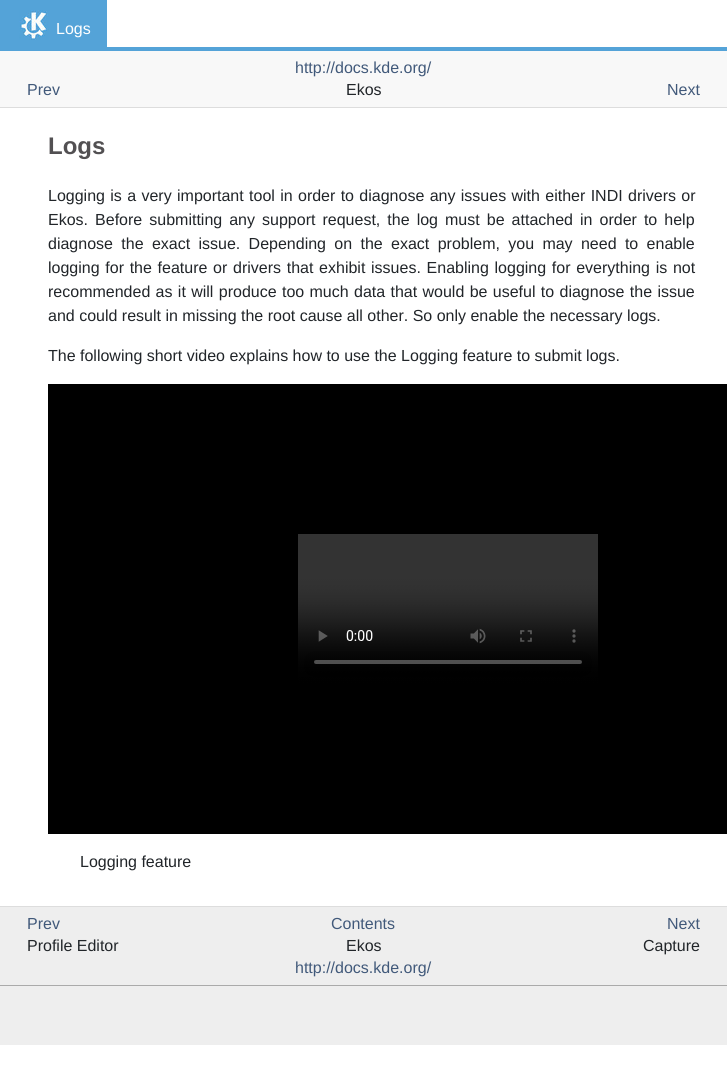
import math
import cairocffi as cairo

surface = cairo.ImageSurface(cairo.FORMAT_RGB24, 727, 1075)
ctx = cairo.Context(surface)
options = cairo.FontOptions()
options.set_hint_metrics(cairo.HINT_METRICS_OFF)
options.set_hint_style(cairo.HINT_STYLE_NONE)
ctx.set_font_options(options)
ctx.set_miter_limit(4)


def rgb(r, g, b):
    ctx.set_source_rgb(r / 255, g / 255, b / 255)


def face(family, size, italic, bold):
    ctx.select_font_face(family, cairo.FONT_SLANT_ITALIC if italic else cairo.FONT_SLANT_NORMAL, cairo.FONT_WEIGHT_BOLD if bold else cairo.FONT_WEIGHT_NORMAL)
    ctx.set_font_size(size)


def label(x, y, s):
    ctx.move_to(x, y)
    ctx.show_text(s)


def tracked(x, y, s, letter, word):
    ctx.move_to(x, y)
    for ch in s:
        ctx.show_text(ch)
        ctx.rel_move_to(letter + word * (ch == ' '), 0)


def rect(x, y, w, h):
    ctx.rectangle(x, y, w, h)
    ctx.fill()


def image(path, x, y, w, h):
    ctx.save()
    ctx.set_source_surface(cairo.ImageSurface.create_from_png(path), x, y)
    ctx.rectangle(x, y, w, h)
    ctx.fill()
    ctx.restore()


rgb(255, 255, 255)
ctx.paint()
rgb(84, 163, 216)
rect(0, 0, 727, 51)
rgb(255, 255, 255)
rect(107, 0, 620, 47)
image('image0.png', 19, 10, 30, 30)
face('Liberation Sans', 16, 0, 0)
label(56, 34, 'Logs')
rgb(248, 248, 248)
rect(0, 51, 727, 56)
rgb(221, 221, 221)
rect(0, 107, 727, 1)
rgb(65, 89, 122)
label(295, 73, 'http://docs.kde.org/')
label(27, 95, 'Prev')
rgb(33, 37, 41)
label(346, 95, 'Ekos')
rgb(65, 89, 122)
label(667, 95, 'Next')
face('Liberation Sans', 24, 0, 1)
rgb(82, 80, 82)
label(48, 154, 'Logs')
face('Liberation Sans', 16, 0, 0)
rgb(33, 37, 41)
tracked(48, 201, 'Logging is a very important tool in order to diagnose any issues with either INDI drivers or', 0, 0.9)
tracked(48, 225, 'Ekos. Before submitting any support request, the log must be attached in order to help', 0, 2.6)
tracked(48, 249, 'diagnose the exact issue. Depending on the exact problem, you may need to enable', 0, 3.9)
tracked(48, 273, 'logging for the feature or drivers that exhibit issues. Enabling logging for everything is not', 0, 1.25)
tracked(48, 297, 'recommended as it will produce too much data that would be useful to diagnose the issue', 0, 0.9)
label(48, 321, 'and could result in missing the root cause all other. So only enable the necessary logs.')
label(48, 361, 'The following short video explains how to use the Logging feature to submit logs.')
image('image1.png', 48, 384, 679, 450)
label(80, 867, 'Logging feature')
rgb(238, 238, 238)
rect(0, 907, 727, 138)
rgb(221, 221, 221)
rect(0, 906, 727, 1)
rgb(170, 170, 170)
rect(0, 985, 727, 1)
rgb(65, 89, 122)
label(27, 929, 'Prev')
label(331, 929, 'Contents')
label(667, 929, 'Next')
rgb(33, 37, 41)
label(27, 951, 'Profile Editor')
label(346, 951, 'Ekos')
label(643, 951, 'Capture')
rgb(65, 89, 122)
label(295, 973, 'http://docs.kde.org/')
surface.write_to_png('render.png')
